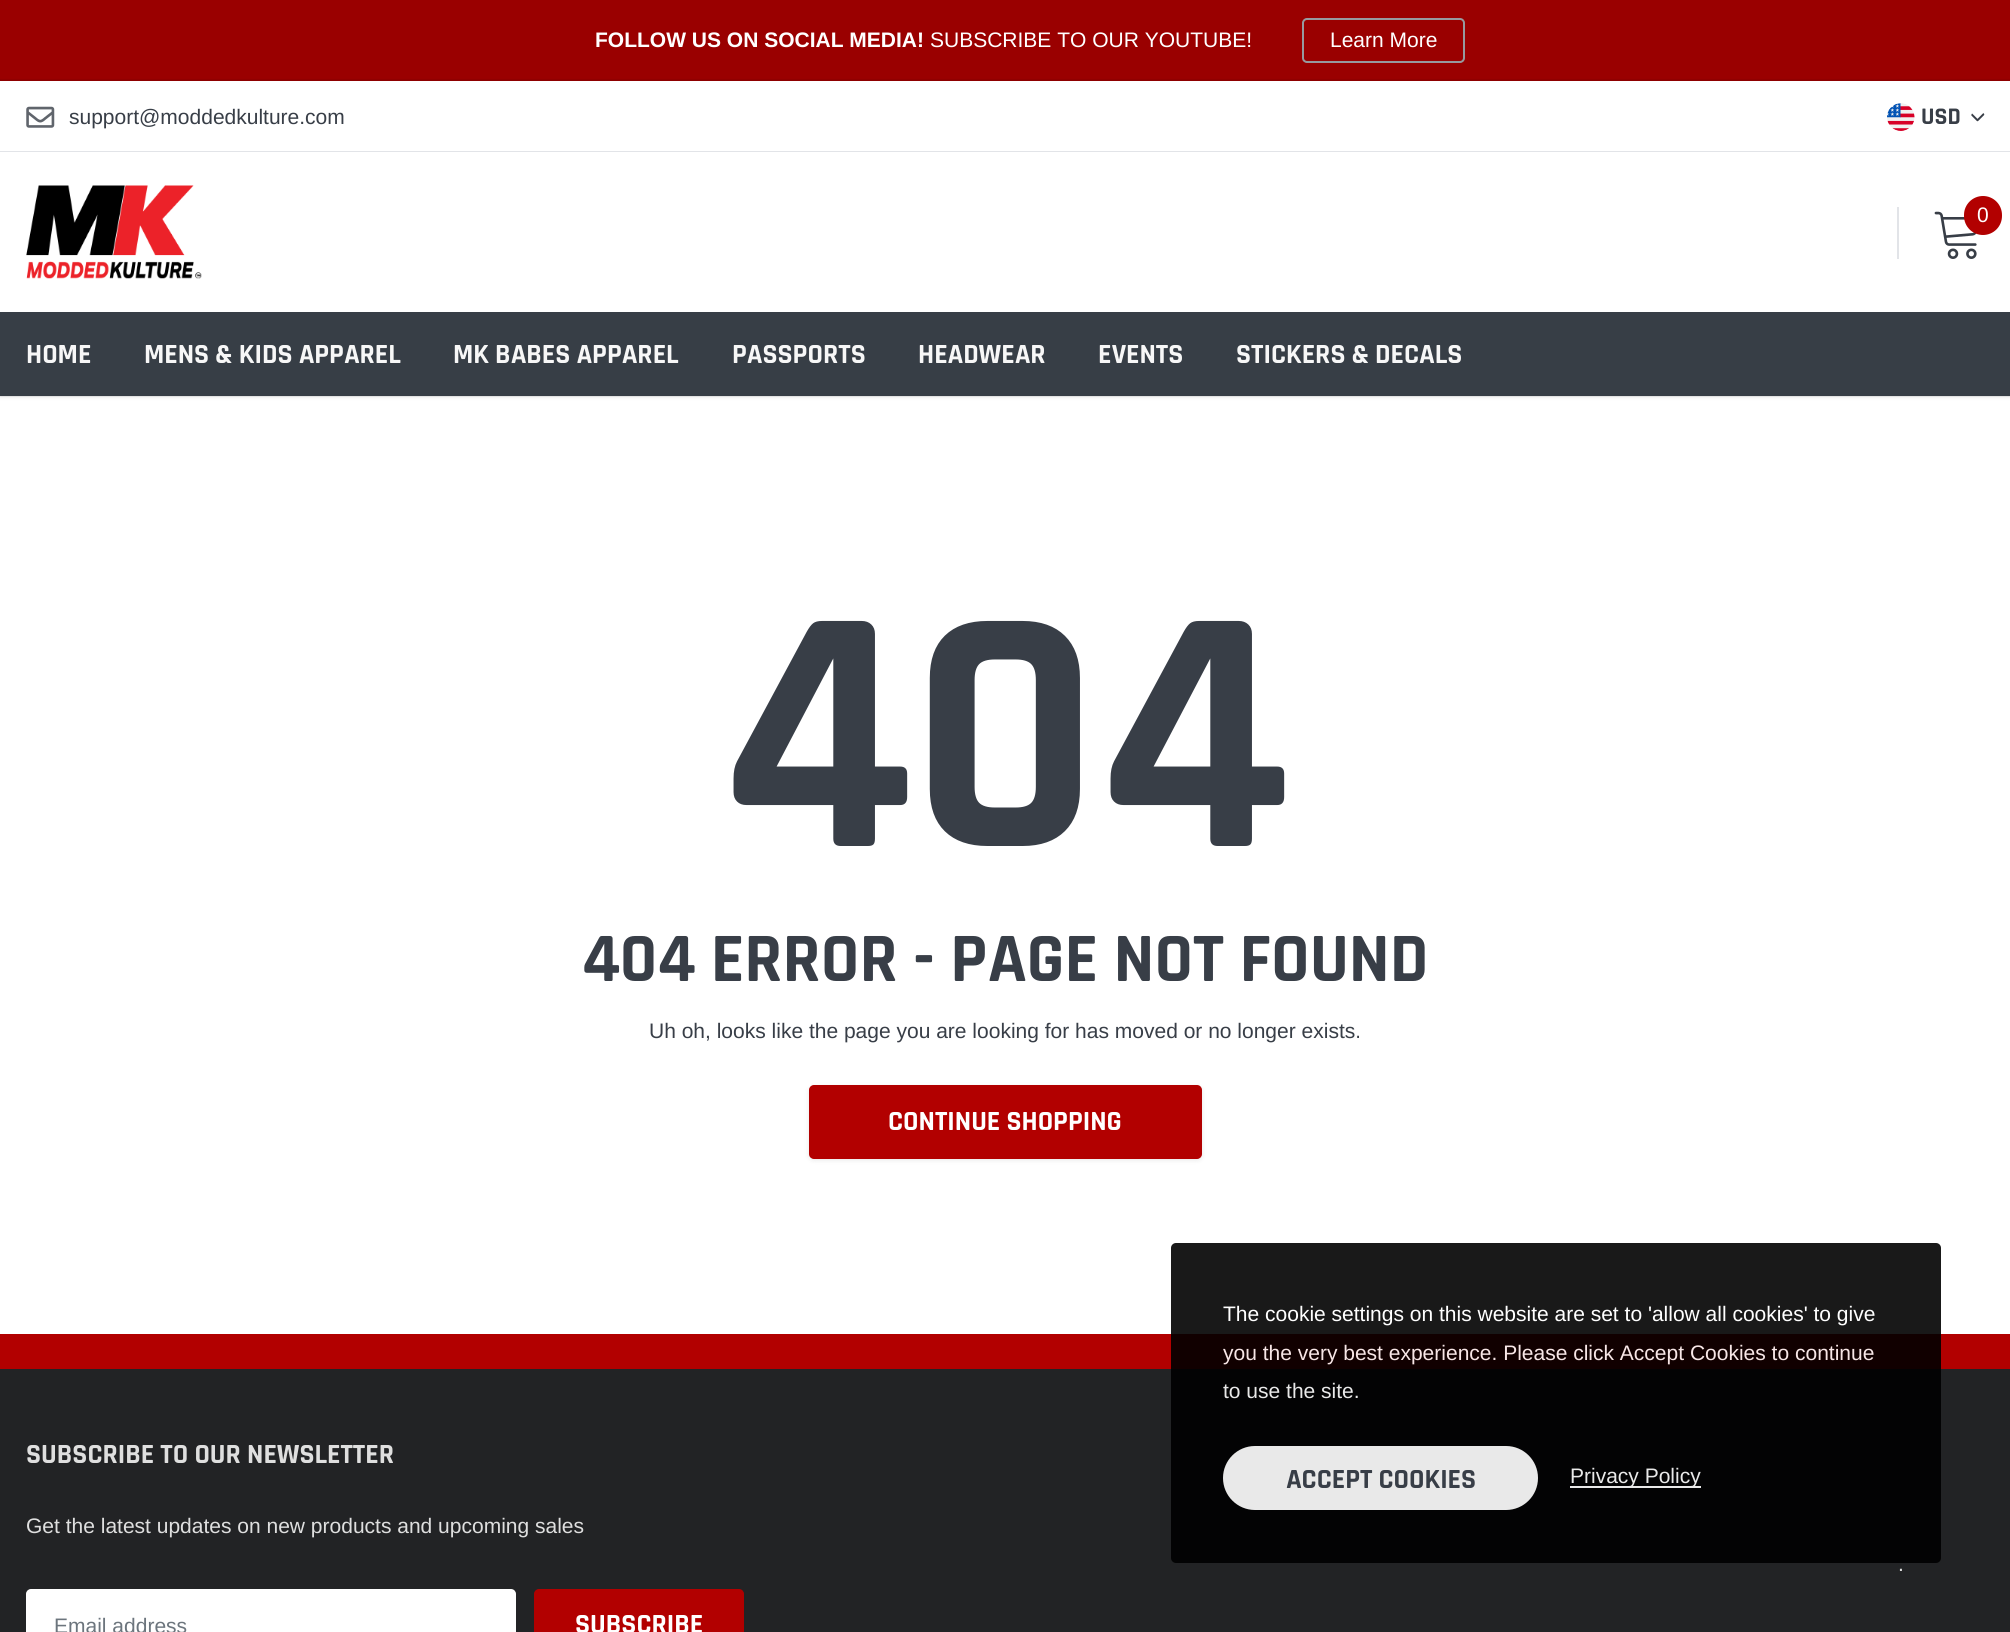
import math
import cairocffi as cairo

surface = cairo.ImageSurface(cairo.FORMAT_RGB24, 2010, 1632)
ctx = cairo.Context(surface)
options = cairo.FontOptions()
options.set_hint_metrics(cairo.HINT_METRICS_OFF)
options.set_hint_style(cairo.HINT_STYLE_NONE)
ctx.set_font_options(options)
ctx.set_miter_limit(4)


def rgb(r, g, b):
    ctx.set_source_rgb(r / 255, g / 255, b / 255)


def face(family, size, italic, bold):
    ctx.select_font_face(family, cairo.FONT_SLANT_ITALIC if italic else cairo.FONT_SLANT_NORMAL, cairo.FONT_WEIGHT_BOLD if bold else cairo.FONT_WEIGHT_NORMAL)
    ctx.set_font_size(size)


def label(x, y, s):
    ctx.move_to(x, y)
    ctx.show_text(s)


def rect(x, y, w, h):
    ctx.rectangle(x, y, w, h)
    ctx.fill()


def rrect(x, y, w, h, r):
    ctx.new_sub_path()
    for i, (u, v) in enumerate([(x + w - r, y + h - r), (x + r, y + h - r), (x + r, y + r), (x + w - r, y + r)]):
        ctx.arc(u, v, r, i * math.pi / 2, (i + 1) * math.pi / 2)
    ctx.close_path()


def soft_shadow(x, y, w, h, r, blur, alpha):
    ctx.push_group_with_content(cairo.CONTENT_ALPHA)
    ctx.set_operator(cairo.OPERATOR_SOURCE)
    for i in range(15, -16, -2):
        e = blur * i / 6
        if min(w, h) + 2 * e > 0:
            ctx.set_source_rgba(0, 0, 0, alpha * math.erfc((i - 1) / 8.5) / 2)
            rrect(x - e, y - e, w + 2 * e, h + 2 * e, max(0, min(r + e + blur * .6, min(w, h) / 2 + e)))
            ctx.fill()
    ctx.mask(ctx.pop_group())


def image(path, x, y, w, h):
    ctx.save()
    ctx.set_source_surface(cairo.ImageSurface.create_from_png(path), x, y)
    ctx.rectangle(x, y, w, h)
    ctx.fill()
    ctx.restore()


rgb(255, 255, 255)
ctx.paint()
rgb(154, 0, 0)
rect(0, 0, 2010, 81)
face('Arimo', 21, 0, 1)
rgb(255, 255, 255)
label(595, 47, 'FOLLOW US ON SOCIAL MEDIA!')
face('Arimo', 21, 0, 0)
label(930, 47, 'SUBSCRIBE TO OUR YOUTUBE!')
rrect(1303, 19, 161, 43, 4)
rgb(151, 154, 159)
ctx.stroke()
rgb(255, 255, 255)
label(1330, 47, 'Learn More')
rgb(0, 0, 0)
soft_shadow(0, 82, 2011, 315, 0, 2, 0.1)
ctx.rectangle(-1, 80, 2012, 316)
ctx.set_source_rgba(0, 0, 0, 0.06)
ctx.stroke()
rgb(255, 255, 255)
rect(0, 81, 2010, 70)
rgb(226, 228, 232)
rect(0, 151, 2010, 1)
image('image0.png', 26, 106, 29, 22)
rgb(56, 62, 71)
label(69, 124, 'support@moddedkulture.com')
image('image1.png', 1887, 103, 28, 28)
face('Rajdhani', 24, 0, 1)
label(1921, 124, 'USD')
image('image2.png', 1971, 113, 14, 9)
rgb(255, 255, 255)
rect(0, 152, 2010, 160)
image('image3.png', 26, 185, 176, 94)
rgb(226, 228, 232)
rect(1897, 207, 2, 52)
image('image4.png', 1934, 211, 43, 48)
rgb(178, 0, 0)
rrect(1964, 196, 38, 39, 19)
ctx.fill()
face('Arimo', 21, 0, 0)
rgb(255, 255, 255)
label(1977, 222, '0')
rgb(55, 62, 70)
rect(0, 312, 2010, 84)
face('Rajdhani', 28, 0, 1)
rgb(247, 247, 247)
label(26, 363, 'HOME')
label(144, 363, 'MENS & KIDS APPAREL')
label(453, 363, 'MK BABES APPAREL')
label(732, 363, 'PASSPORTS')
label(918, 363, 'HEADWEAR')
label(1098, 363, 'EVENTS')
label(1236, 363, 'STICKERS & DECALS')
face('Rajdhani', 350, 0, 1)
rgb(56, 62, 71)
label(722, 846, '404')
face('Rajdhani', 70, 0, 1)
label(582, 981, '404 ERROR - PAGE NOT FOUND')
face('Arimo', 21, 0, 0)
label(649, 1038, 'Uh oh, looks like the page you are looking for has moved or no longer exists.')
rgb(0, 0, 0)
soft_shadow(809, 1087, 393, 73, 5, 2.5, 0.1)
rgb(178, 0, 0)
rrect(810, 1086, 391, 72, 4)
ctx.fill_preserve()
ctx.stroke()
face('Rajdhani', 28, 0, 1)
rgb(255, 255, 255)
label(888, 1130, 'CONTINUE SHOPPING')
rgb(178, 0, 0)
rect(0, 1334, 2010, 35)
rgb(34, 35, 37)
rect(0, 1369, 2010, 263)
rgb(223, 223, 223)
label(26, 1463, 'SUBSCRIBE TO OUR NEWSLETTER')
face('Arimo', 21, 0, 0)
label(26, 1533, 'Get the latest updates on new products and upcoming sales')
rgb(255, 255, 255)
rrect(27, 1590, 488, 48, 4)
ctx.fill_preserve()
ctx.stroke()
rgb(108, 117, 125)
label(54, 1633, 'Email address')
rgb(178, 0, 0)
rrect(535, 1590, 208, 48, 4)
ctx.fill_preserve()
ctx.stroke()
face('Rajdhani', 28, 0, 1)
rgb(255, 255, 255)
label(575, 1633, 'SUBSCRIBE')
face('Arimo', 21, 0, 0)
rgb(223, 223, 223)
label(1898, 1571, '.')
ctx.set_source_rgba(0, 0, 0, 0.9)
rrect(1171, 1243, 770, 320, 5)
ctx.fill()
rgb(255, 255, 255)
label(1223, 1321, 'The cookie settings on this website are set to \'allow all cookies\' to give')
rgb(247, 230, 230)
label(1223, 1360, 'you the very best experience. Please click Accept Cookies to continue')
rgb(233, 233, 233)
label(1223, 1398, 'to use the site.')
rrect(1223, 1446, 315, 64, 32)
ctx.fill()
face('Rajdhani', 28, 0, 1)
rgb(56, 62, 71)
label(1286, 1488, 'ACCEPT COOKIES')
rgb(233, 233, 233)
rect(1570, 1486, 131, 2)
face('Arimo', 21, 0, 0)
label(1570, 1483, 'Privacy Policy')
surface.write_to_png('render.png')
